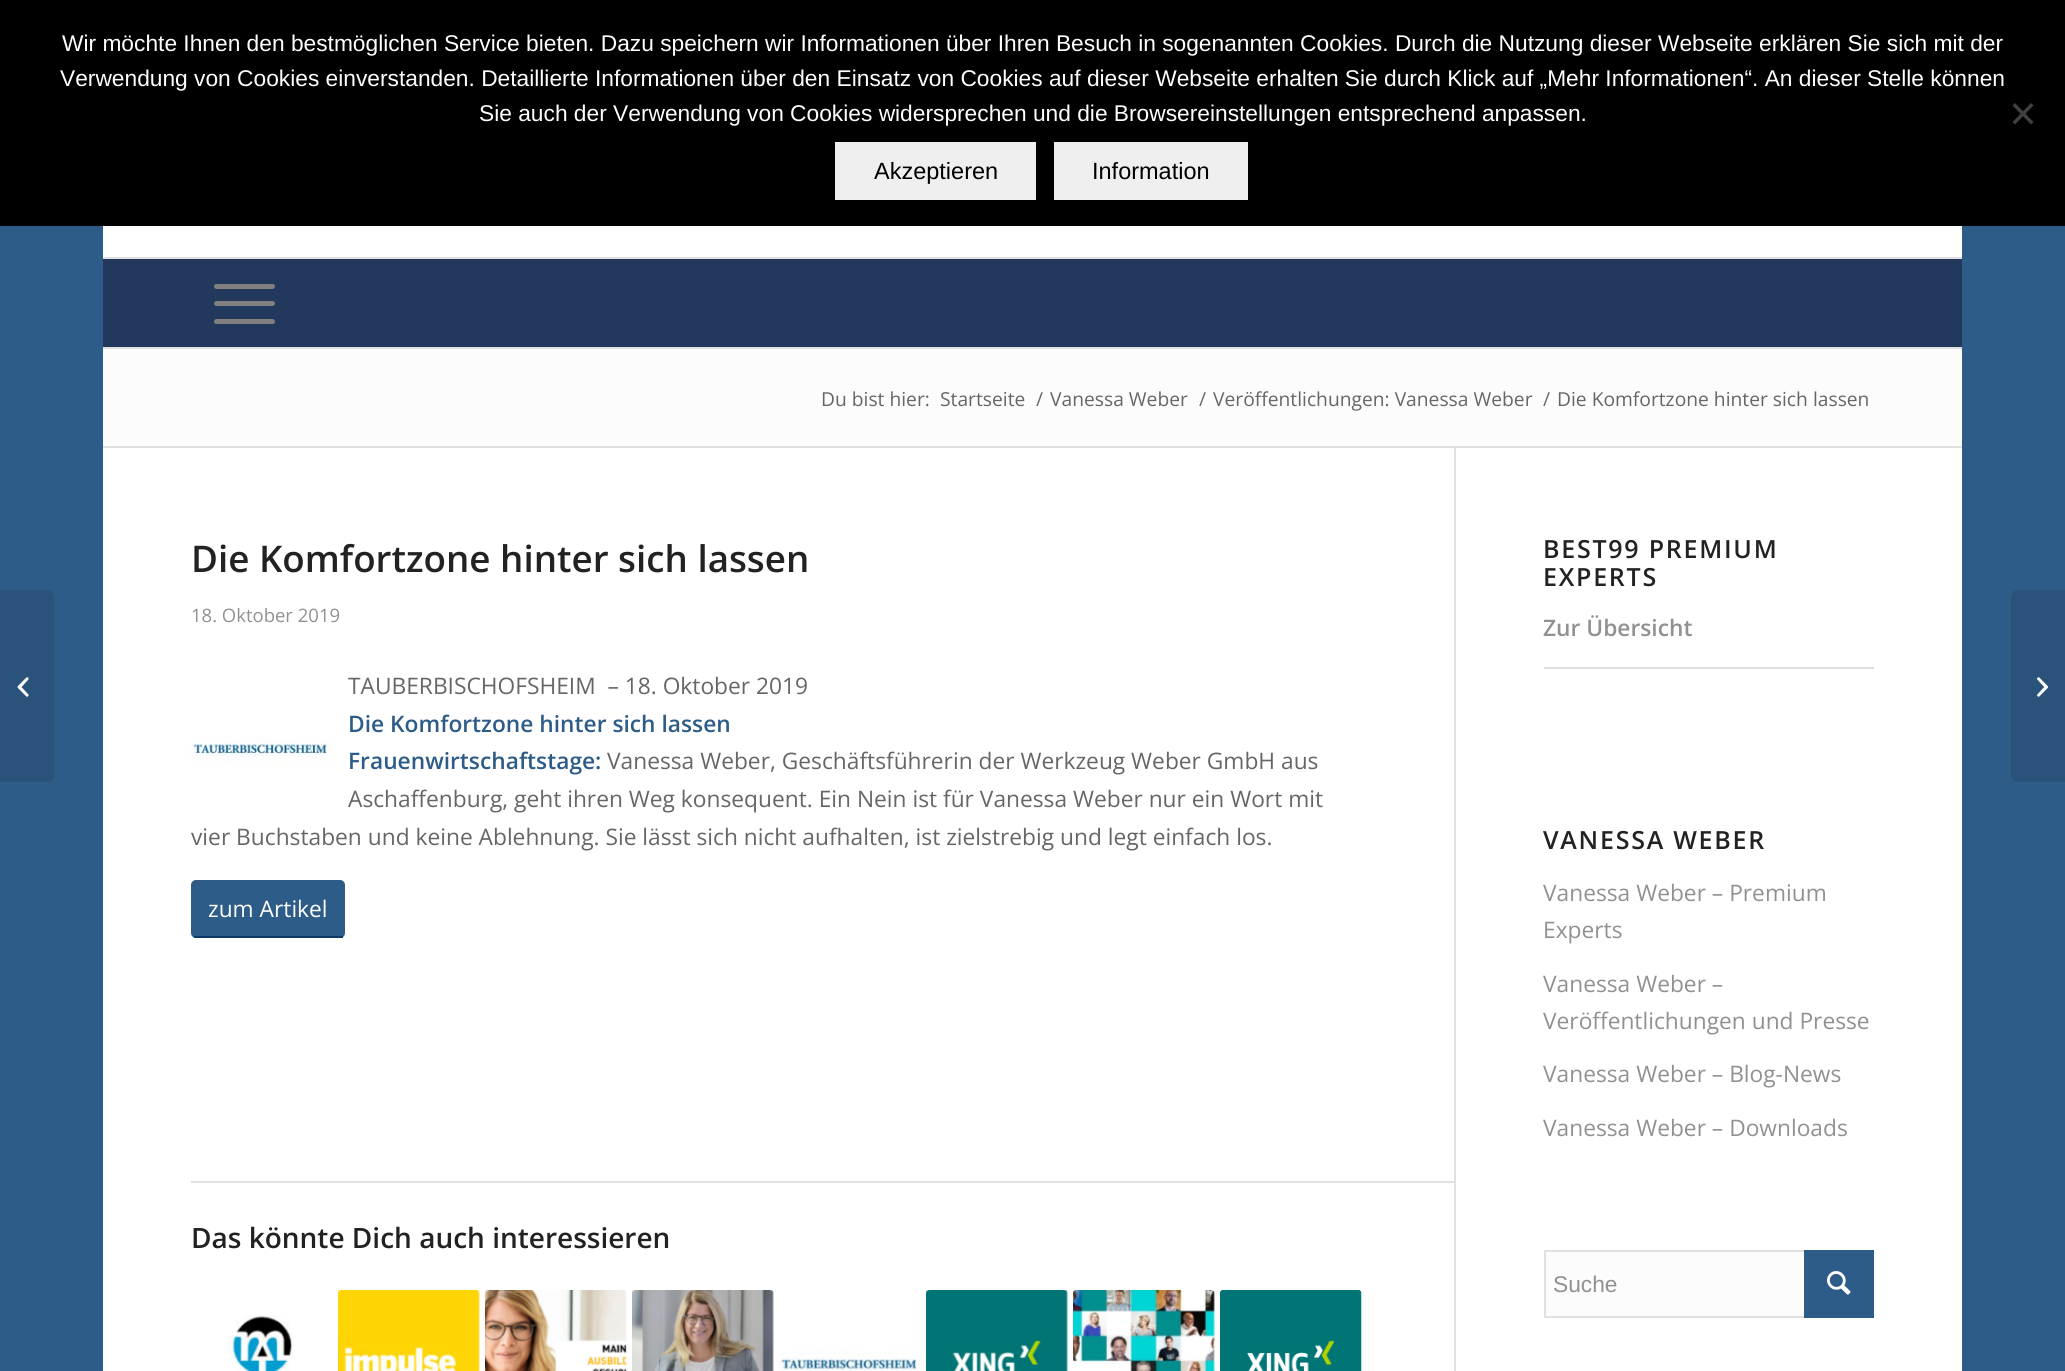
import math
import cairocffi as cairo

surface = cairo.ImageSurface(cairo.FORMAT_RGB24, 2065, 1371)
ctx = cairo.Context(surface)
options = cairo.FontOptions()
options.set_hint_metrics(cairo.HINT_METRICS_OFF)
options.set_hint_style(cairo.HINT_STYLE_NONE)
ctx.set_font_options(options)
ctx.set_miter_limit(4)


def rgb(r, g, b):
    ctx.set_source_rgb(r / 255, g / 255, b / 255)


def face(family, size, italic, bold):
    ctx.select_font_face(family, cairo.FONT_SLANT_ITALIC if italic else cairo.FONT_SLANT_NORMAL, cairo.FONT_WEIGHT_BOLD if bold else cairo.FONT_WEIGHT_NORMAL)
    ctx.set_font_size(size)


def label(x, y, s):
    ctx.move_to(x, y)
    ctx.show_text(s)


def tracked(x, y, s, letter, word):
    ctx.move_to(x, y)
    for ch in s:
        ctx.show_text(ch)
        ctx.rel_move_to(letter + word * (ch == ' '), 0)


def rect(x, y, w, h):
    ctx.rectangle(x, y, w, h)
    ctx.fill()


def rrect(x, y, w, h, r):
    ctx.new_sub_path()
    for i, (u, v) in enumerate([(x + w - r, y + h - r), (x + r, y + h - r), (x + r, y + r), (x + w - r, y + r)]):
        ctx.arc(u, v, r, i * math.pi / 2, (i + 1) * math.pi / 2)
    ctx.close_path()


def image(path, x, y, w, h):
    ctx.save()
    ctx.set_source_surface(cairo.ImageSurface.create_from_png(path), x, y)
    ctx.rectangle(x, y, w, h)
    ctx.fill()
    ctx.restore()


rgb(45, 92, 136)
ctx.paint()
rgb(0, 0, 0)
rect(0, 0, 2065, 226)
face('Liberation Sans', 22.75, 0, 0)
rgb(255, 255, 255)
label(62, 51, 'Wir möchte Ihnen den bestmöglichen Service bieten. Dazu speichern wir Informationen über Ihren Besuch in sogenannten Cookies. Durch die Nutzung dieser Webseite erklären Sie sich mit der')
label(60, 86, 'Verwendung von Cookies einverstanden. Detaillierte Informationen über den Einsatz von Cookies auf dieser Webseite erhalten Sie durch Klick auf „Mehr Informationen“. An dieser Stelle können')
label(479, 121, 'Sie auch der Verwendung von Cookies widersprechen und die Browsereinstellungen entsprechend anpassen.')
rgb(64, 64, 64)
ctx.new_path()
ctx.move_to(2031, 103)
ctx.line_to(2033.5, 105.5)
ctx.line_to(2015, 124.5)
ctx.line_to(2012.5, 122)
ctx.close_path()
ctx.fill()
ctx.new_path()
ctx.move_to(2012.5, 105.5)
ctx.line_to(2015, 103)
ctx.line_to(2033.5, 122)
ctx.line_to(2031, 124.5)
ctx.close_path()
ctx.fill()
rgb(239, 239, 239)
rect(835, 142, 201, 58)
face('Liberation Sans', 23.5, 0, 0)
rgb(0, 0, 0)
label(874, 179, 'Akzeptieren')
rgb(239, 239, 239)
rect(1054, 142, 194, 58)
rgb(0, 0, 0)
label(1092, 179, 'Information')
rgb(225, 225, 225)
rect(103, 347, 1859, 2)
rgb(34, 56, 93)
rect(103, 259, 1859, 88)
rgb(225, 225, 225)
rect(103, 257, 1859, 2)
rgb(128, 128, 128)
rrect(214, 301, 61, 5, 2.5)
ctx.fill()
rrect(214, 284, 61, 5, 2.5)
ctx.fill()
rrect(214, 319, 61, 5, 2.5)
ctx.fill()
rgb(41, 83, 122)
ctx.new_path()
ctx.move_to(0, 590)
ctx.line_to(47, 590)
ctx.curve_to(51, 590, 54, 593, 54, 597)
ctx.line_to(54, 775)
ctx.curve_to(54, 779, 51, 782, 47, 782)
ctx.line_to(0, 782)
ctx.close_path()
ctx.fill()
image('image0.png', 17, 677, 12, 20)
rgb(255, 255, 255)
rect(103, 448, 1859, 923)
rect(103, 226, 1859, 31)
rgb(252, 252, 252)
rect(103, 349, 1859, 97)
face('Open Sans', 19.25, 0, 0)
rgb(102, 102, 102)
label(821, 406, 'Du bist hier:')
label(940, 406, 'Startseite')
label(1036, 406, '/')
label(1050, 406, 'Vanessa Weber')
label(1199, 406, '/')
label(1213, 406, 'Veröffentlichungen: Vanessa Weber')
label(1543, 406, '/')
label(1557, 406, 'Die Komfortzone hinter sich lassen')
rgb(225, 225, 225)
rect(103, 446, 1859, 2)
rect(1454, 448, 2, 923)
face('Open Sans SemiBold', 36.75, 0, 0)
rgb(34, 34, 34)
label(191, 572, 'Die Komfortzone hinter sich lassen')
face('Open Sans', 18.5, 0, 0)
rgb(145, 145, 145)
label(191, 622, '18. Oktober 2019')
face('Open Sans', 22.75, 0, 0)
rgb(102, 102, 102)
label(348, 694, 'TAUBERBISCHOFSHEIM  – 18. Oktober 2019')
face('Open Sans SemiBold', 22.75, 0, 0)
rgb(45, 92, 136)
label(348, 732, 'Die Komfortzone hinter sich lassen')
image('image1.png', 191, 735, 140, 31)
label(348, 769, 'Frauenwirtschaftstage:')
face('Open Sans', 22.75, 0, 0)
rgb(102, 102, 102)
label(607, 769, 'Vanessa Weber, Geschäftsführerin der Werkzeug Weber GmbH aus')
label(348, 807, 'Aschaffenburg, geht ihren Weg konsequent. Ein Nein ist für Vanessa Weber nur ein Wort mit')
label(191, 845, 'vier Buchstaben und keine Ablehnung. Sie lässt sich nicht aufhalten, ist zielstrebig und legt einfach los.')
rgb(45, 92, 136)
rrect(191, 880, 154, 58, 5)
ctx.fill()
rgb(11, 58, 102)
rect(194, 936, 149, 2)
rgb(255, 255, 255)
label(208, 917, 'zum Artikel')
rgb(225, 225, 225)
rect(191, 1181, 1263, 2)
face('Open Sans SemiBold', 28, 0, 0)
rgb(34, 34, 34)
label(191, 1248, 'Das könnte Dich auch interessieren')
image('image2.png', 228, 1315, 67, 56)
image('image3.png', 338, 1290, 142, 81)
image('image4.png', 485, 1290, 142, 81)
image('image5.png', 632, 1290, 142, 81)
image('image6.png', 779, 1350, 141, 21)
image('image7.png', 926, 1290, 142, 81)
image('image8.png', 1073, 1290, 142, 81)
image('image9.png', 1220, 1290, 142, 81)
face('Open Sans SemiBold', 25, 0, 0)
tracked(1543, 558, 'BEST99 PREMIUM', 1.75, 0)
tracked(1543, 586, 'EXPERTS', 1.75, 0)
face('Open Sans SemiBold', 22.75, 0, 0)
rgb(145, 145, 145)
label(1543, 636, 'Zur Übersicht')
rgb(221, 221, 221)
rect(1544, 667, 330, 2)
face('Open Sans SemiBold', 25, 0, 0)
rgb(34, 34, 34)
tracked(1543, 849, 'VANESSA WEBER', 1.75, 0)
face('Open Sans', 22.75, 0, 0)
rgb(145, 145, 145)
label(1543, 901, 'Vanessa Weber – Premium')
label(1543, 938, 'Experts')
label(1543, 992, 'Vanessa Weber –')
label(1543, 1029, 'Veröffentlichungen und Presse')
label(1543, 1082, 'Vanessa Weber – Blog-News')
label(1543, 1136, 'Vanessa Weber – Downloads')
rgb(252, 252, 252)
rect(1546, 1252, 258, 64)
ctx.rectangle(1545, 1251, 328, 66)
rgb(225, 225, 225)
ctx.stroke()
face('Liberation Sans', 22.75, 0, 0)
rgb(145, 145, 145)
label(1553, 1292, 'Suche')
rgb(45, 92, 136)
rect(1804, 1250, 70, 68)
image('image10.png', 1827, 1271, 24, 24)
rgb(41, 83, 122)
ctx.new_path()
ctx.move_to(2018, 590)
ctx.line_to(2065, 590)
ctx.line_to(2065, 782)
ctx.line_to(2018, 782)
ctx.curve_to(2014, 782, 2011, 779, 2011, 775)
ctx.line_to(2011, 597)
ctx.curve_to(2011, 593, 2014, 590, 2018, 590)
ctx.close_path()
ctx.fill()
image('image11.png', 2037, 677, 12, 20)
surface.write_to_png('render.png')
